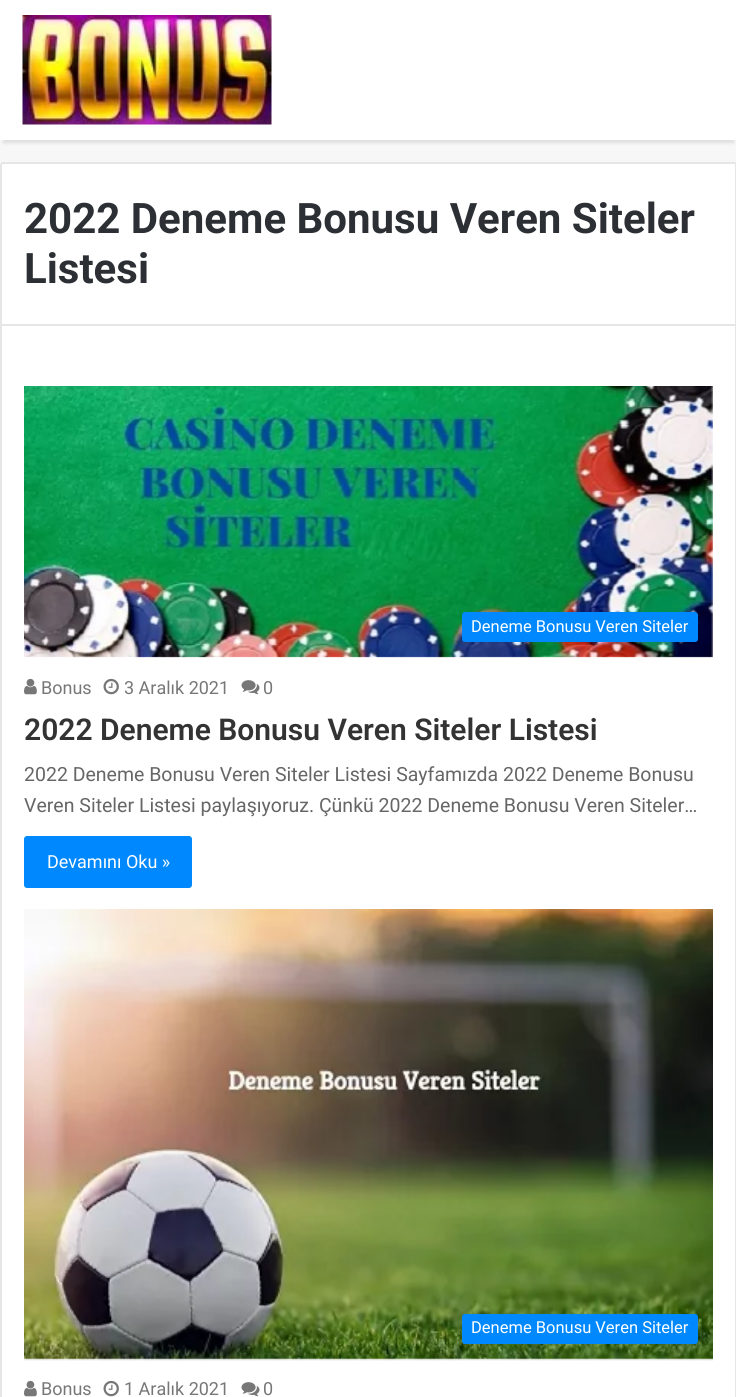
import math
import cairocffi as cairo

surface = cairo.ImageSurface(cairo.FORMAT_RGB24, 736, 1397)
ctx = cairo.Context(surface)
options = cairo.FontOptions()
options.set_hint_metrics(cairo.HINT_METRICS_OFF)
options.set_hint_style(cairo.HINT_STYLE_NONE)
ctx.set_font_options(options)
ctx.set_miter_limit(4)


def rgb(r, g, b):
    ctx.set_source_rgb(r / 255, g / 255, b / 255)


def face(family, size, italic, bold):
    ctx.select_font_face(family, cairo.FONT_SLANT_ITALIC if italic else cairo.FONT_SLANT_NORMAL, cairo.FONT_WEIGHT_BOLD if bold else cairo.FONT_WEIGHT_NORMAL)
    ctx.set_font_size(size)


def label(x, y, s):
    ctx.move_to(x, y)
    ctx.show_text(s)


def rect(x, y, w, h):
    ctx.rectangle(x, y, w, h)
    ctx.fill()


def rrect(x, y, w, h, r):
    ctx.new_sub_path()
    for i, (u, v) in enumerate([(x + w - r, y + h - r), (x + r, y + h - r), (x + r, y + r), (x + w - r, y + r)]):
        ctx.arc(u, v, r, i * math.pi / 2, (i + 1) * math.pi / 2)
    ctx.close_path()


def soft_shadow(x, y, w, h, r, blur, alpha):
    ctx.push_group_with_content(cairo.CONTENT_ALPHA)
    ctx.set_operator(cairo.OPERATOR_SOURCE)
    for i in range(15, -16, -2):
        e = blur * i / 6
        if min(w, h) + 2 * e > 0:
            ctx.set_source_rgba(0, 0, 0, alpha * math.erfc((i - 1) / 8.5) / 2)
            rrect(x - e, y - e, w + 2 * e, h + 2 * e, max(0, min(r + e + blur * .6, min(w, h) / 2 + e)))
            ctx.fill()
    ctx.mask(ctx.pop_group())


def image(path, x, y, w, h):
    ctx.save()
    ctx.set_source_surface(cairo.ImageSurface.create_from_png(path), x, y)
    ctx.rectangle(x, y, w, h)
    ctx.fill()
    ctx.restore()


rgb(247, 247, 247)
ctx.paint()
rgb(0, 0, 0)
soft_shadow(3, 9, 731, 134, 0, 1.5, 0.1)
rgb(255, 255, 255)
rect(0, 0, 736, 140)
image('image0.png', 22, 15, 250, 110)
ctx.new_path()
ctx.move_to(3, 162)
ctx.line_to(734, 162)
ctx.curve_to(735.5, 162, 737, 163.5, 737, 165)
ctx.line_to(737, 326)
ctx.line_to(0, 326)
ctx.line_to(0, 165)
ctx.curve_to(0, 163.5, 1.5, 162, 3, 162)
ctx.close_path()
ctx.fill()
ctx.new_path()
ctx.move_to(3, 163)
ctx.line_to(734, 163)
ctx.curve_to(735, 163, 736, 164, 736, 165)
ctx.line_to(736, 325)
ctx.line_to(1, 325)
ctx.line_to(1, 165)
ctx.curve_to(1, 164, 2, 163, 3, 163)
ctx.close_path()
ctx.set_source_rgba(0, 0, 0, 0.1)
ctx.stroke()
face('Roboto', 42, 0, 1)
rgb(44, 47, 52)
label(24, 233, '2022 Deneme Bonusu Veren Siteler')
label(24, 283, 'Listesi')
rgb(255, 255, 255)
rect(2, 326, 733, 1071)
rgb(230, 230, 230)
rect(735, 326, 1, 1071)
rect(0, 326, 2, 1071)
image('image1.png', 24, 386, 689, 272)
rgb(0, 136, 255)
rrect(462, 612, 236, 30, 3)
ctx.fill()
face('Roboto', 16.5, 0, 0)
rgb(255, 255, 255)
label(471, 632, 'Deneme Bonusu Veren Siteler')
image('image2.png', 24, 678, 13, 17)
face('Roboto', 18, 0, 0)
rgb(119, 119, 119)
label(41, 694, 'Bonus')
image('image3.png', 103, 678, 16, 17)
label(124, 694, '3 Aralık 2021')
image('image4.png', 241, 680, 19, 15)
label(263, 694, '0')
face('Roboto SemiBold', 30, 0, 0)
rgb(51, 51, 51)
label(24, 740, '2022 Deneme Bonusu Veren Siteler Listesi')
face('Roboto', 19.5, 0, 0)
rgb(102, 102, 102)
label(24, 781, '2022 Deneme Bonusu Veren Siteler Listesi Sayfamızda 2022 Deneme Bonusu')
label(24, 812, 'Veren Siteler Listesi paylaşıyoruz. Çünkü 2022 Deneme Bonusu Veren Siteler…')
rgb(0, 136, 255)
rrect(24, 836, 168, 52, 3)
ctx.fill()
face('Roboto', 18, 0, 0)
rgb(255, 255, 255)
label(47, 868, 'Devamını Oku »')
image('image5.png', 24, 909, 689, 452)
rgb(0, 136, 255)
rrect(462, 1314, 236, 30, 3)
ctx.fill()
face('Roboto', 16.5, 0, 0)
rgb(255, 255, 255)
label(471, 1333, 'Deneme Bonusu Veren Siteler')
image('image2.png', 24, 1380, 13, 17)
face('Roboto', 18, 0, 0)
rgb(119, 119, 119)
label(41, 1395, 'Bonus')
image('image3.png', 103, 1380, 16, 17)
label(124, 1395, '1 Aralık 2021')
image('image4.png', 241, 1382, 19, 15)
label(263, 1395, '0')
surface.write_to_png('render.png')
